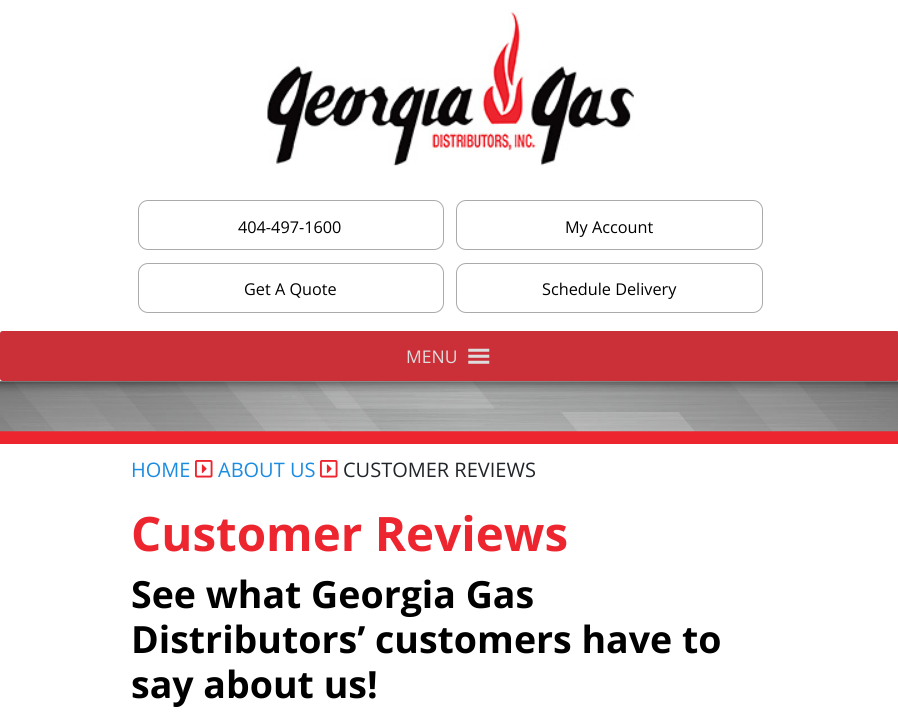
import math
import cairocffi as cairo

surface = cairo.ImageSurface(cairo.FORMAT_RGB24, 898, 720)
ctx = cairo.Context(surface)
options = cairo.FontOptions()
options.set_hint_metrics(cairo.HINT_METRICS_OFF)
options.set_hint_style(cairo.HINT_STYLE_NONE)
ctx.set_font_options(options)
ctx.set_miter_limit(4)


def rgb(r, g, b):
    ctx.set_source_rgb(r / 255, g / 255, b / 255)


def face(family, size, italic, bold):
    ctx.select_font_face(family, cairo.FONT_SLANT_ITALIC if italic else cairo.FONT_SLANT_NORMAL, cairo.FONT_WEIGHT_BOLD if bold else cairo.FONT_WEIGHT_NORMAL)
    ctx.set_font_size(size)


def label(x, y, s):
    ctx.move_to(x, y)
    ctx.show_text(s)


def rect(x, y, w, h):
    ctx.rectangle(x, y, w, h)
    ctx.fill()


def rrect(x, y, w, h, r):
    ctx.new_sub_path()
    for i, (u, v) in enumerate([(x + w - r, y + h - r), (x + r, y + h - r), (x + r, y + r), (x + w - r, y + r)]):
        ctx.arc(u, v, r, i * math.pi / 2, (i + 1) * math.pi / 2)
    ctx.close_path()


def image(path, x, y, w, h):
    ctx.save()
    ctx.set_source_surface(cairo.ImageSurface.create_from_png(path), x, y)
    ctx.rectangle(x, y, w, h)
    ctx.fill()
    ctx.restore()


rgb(255, 255, 255)
ctx.paint()
image('image0.png', 267, 10, 367, 156)
rrect(138.5, 200.5, 305, 49, 9.5)
rgb(170, 170, 170)
ctx.set_line_width(1)
ctx.stroke()
face('Open Sans', 16.25, 0, 0)
rgb(0, 0, 0)
label(238, 233, '404-497-1600')
rrect(456.5, 200.5, 306, 49, 9.5)
rgb(170, 170, 170)
ctx.stroke()
rgb(0, 0, 0)
label(565, 233, 'My Account')
rrect(138.5, 263.5, 305, 49, 9.5)
rgb(170, 170, 170)
ctx.stroke()
rgb(0, 0, 0)
label(244, 295, 'Get A Quote')
rrect(456.5, 263.5, 306, 49, 9.5)
rgb(170, 170, 170)
ctx.stroke()
rgb(0, 0, 0)
label(542, 295, 'Schedule Delivery')
rgb(203, 48, 56)
rrect(0, 331, 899, 50, 2.5)
ctx.fill()
face('Open Sans', 17.5, 0, 0)
rgb(221, 221, 221)
label(406, 363, 'MENU')
image('image1.png', 468, 348, 22, 16)
rgb(237, 37, 47)
rect(0, 431, 898, 13)
image('image2.png', 0, 381, 898, 51)
face('Open Sans', 20, 0, 0)
rgb(28, 140, 225)
label(131, 477, 'HOME')
image('image3.png', 195, 460, 18, 18)
label(218, 477, 'ABOUT US')
image('image3.png', 320, 460, 18, 18)
rgb(33, 37, 41)
label(343, 477, 'CUSTOMER REVIEWS')
face('Open Sans', 47.5, 0, 1)
rgb(237, 37, 47)
label(131, 551, 'Customer Reviews')
face('Open Sans', 37.5, 0, 1)
rgb(0, 0, 0)
label(131, 608, 'See what Georgia Gas')
label(131, 653, 'Distributors’ customers have to')
label(131, 698, 'say about us!')
surface.write_to_png('render.png')
